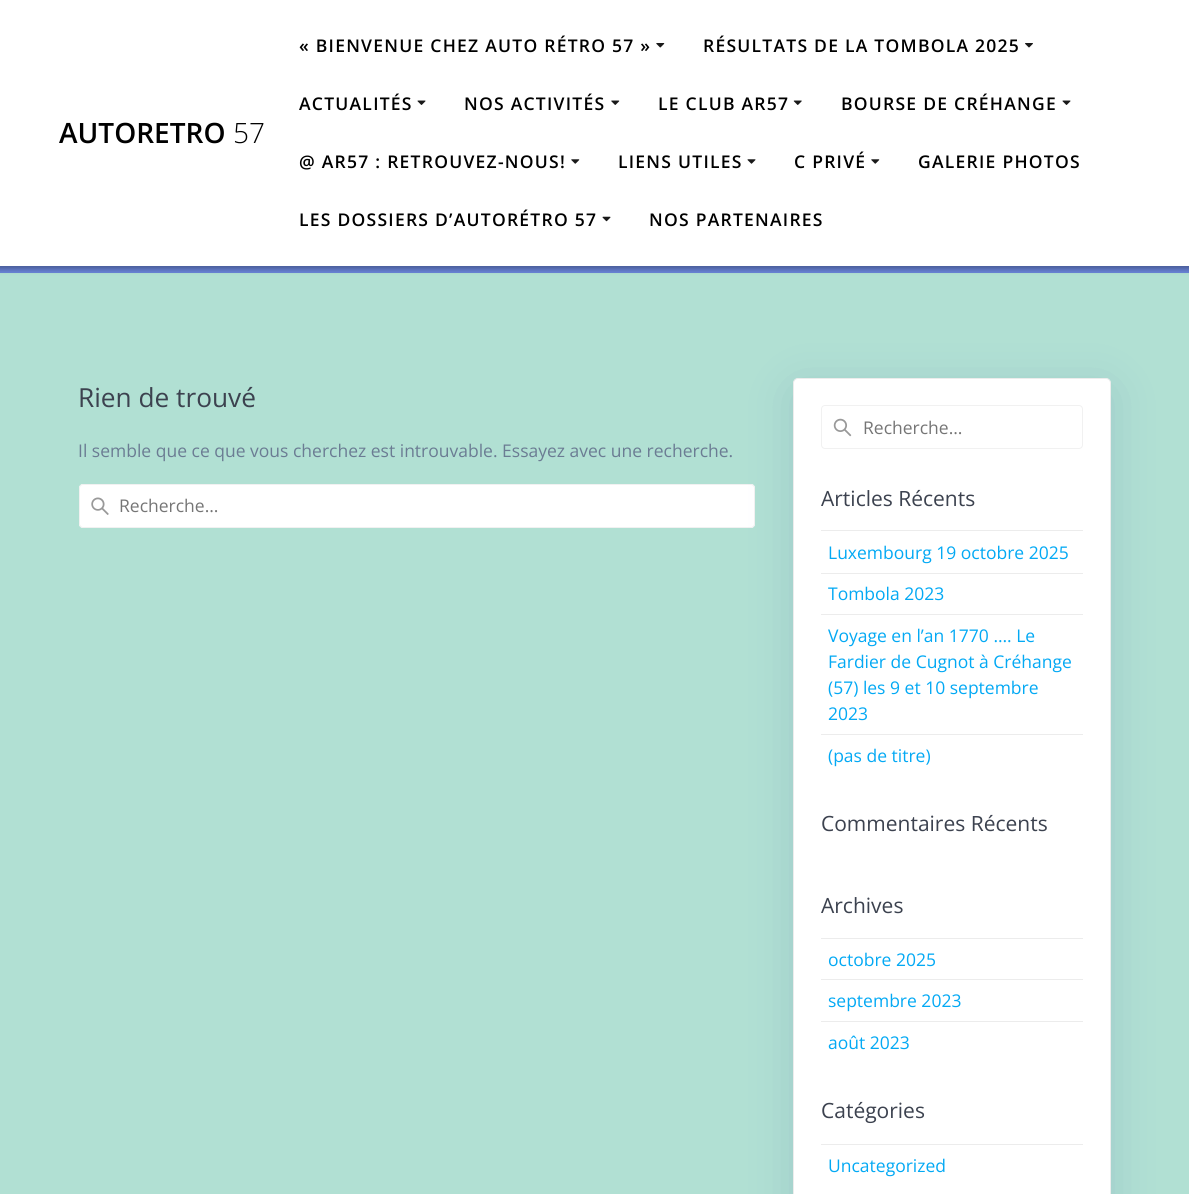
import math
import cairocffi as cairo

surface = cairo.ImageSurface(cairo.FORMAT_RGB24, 1189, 1194)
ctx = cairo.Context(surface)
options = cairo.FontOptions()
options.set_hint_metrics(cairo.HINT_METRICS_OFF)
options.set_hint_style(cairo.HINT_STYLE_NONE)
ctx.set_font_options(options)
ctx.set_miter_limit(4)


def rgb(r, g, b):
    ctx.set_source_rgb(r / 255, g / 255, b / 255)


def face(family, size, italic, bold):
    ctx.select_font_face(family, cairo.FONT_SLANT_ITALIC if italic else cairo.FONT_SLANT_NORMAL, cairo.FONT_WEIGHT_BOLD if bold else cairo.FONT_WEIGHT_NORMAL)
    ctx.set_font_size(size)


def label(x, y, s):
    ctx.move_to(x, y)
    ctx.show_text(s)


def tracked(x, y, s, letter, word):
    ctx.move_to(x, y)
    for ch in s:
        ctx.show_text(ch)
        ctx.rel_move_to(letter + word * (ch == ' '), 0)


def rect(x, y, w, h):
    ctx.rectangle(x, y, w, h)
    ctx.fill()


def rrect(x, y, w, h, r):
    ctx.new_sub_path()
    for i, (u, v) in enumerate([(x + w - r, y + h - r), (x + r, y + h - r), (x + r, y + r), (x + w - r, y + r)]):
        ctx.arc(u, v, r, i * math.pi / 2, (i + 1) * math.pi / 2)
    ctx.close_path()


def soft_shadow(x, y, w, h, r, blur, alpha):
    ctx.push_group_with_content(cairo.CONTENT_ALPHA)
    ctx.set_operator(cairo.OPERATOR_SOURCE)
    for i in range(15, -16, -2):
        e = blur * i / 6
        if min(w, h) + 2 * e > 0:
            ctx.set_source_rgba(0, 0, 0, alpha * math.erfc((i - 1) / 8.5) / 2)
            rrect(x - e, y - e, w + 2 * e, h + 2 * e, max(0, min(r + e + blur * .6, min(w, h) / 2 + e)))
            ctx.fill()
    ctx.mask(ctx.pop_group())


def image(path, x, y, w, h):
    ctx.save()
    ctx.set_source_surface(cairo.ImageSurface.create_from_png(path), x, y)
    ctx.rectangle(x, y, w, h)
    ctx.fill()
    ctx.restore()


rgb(177, 224, 211)
ctx.paint()
rgb(106, 133, 218)
rect(0, 266, 1189, 7)
rgb(0, 0, 0)
soft_shadow(-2, -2, 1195, 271, 0, 3, 0.33)
rgb(255, 255, 255)
rect(0, 0, 1189, 266)
face('Open Sans SemiBold', 28, 0, 0)
rgb(0, 0, 0)
label(59, 143, 'AUTORETRO')
face('Open Sans Light', 28, 0, 0)
label(233, 143, '57')
face('Open Sans SemiBold', 17.5, 0, 0)
tracked(299, 52, '« BIENVENUE CHEZ AUTO RÉTRO 57 »', 1.25, 0)
image('image0.png', 656, 43, 9, 5)
tracked(703, 52, 'RÉSULTATS DE LA TOMBOLA 2025', 1.25, 0)
image('image1.png', 1025, 43, 8, 5)
tracked(299, 110, 'ACTUALITÉS', 1.25, 0)
image('image2.png', 417, 100, 9, 5)
tracked(464, 110, 'NOS ACTIVITÉS', 1.25, 0)
image('image3.png', 611, 100, 9, 5)
tracked(658, 110, 'LE CLUB AR57', 1.25, 0)
image('image4.png', 793, 100, 9, 5)
tracked(841, 110, 'BOURSE DE CRÉHANGE', 1.25, 0)
image('image2.png', 1062, 100, 9, 5)
tracked(299, 168, '@ AR57 : RETROUVEZ-NOUS!', 1.25, 0)
image('image5.png', 571, 159, 9, 5)
tracked(618, 168, 'LIENS UTILES', 1.25, 0)
image('image6.png', 747, 159, 9, 5)
tracked(794, 168, 'C PRIVÉ', 1.25, 0)
image('image5.png', 871, 159, 9, 5)
tracked(918, 168, 'GALERIE PHOTOS', 1.25, 0)
tracked(299, 226, 'LES DOSSIERS D’AUTORÉTRO 57', 1.25, 0)
image('image7.png', 602, 216, 9, 6)
tracked(649, 226, 'NOS PARTENAIRES', 1.25, 0)
face('Open Sans', 26.25, 0, 0)
rgb(60, 66, 79)
label(78, 407, 'Rien de trouvé')
face('Open Sans', 17.5, 0, 0)
rgb(107, 124, 147)
label(78, 457, 'Il semble que ce que vous cherchez est introuvable. Essayez avec une recherche.')
rgb(255, 255, 255)
rrect(79, 484, 676, 44, 4)
ctx.fill()
image('image8.png', 91, 497, 18, 18)
rrect(79.5, 484.5, 675, 43, 3.5)
rgb(241, 241, 241)
ctx.set_line_width(1)
ctx.stroke()
rgb(117, 117, 117)
label(119, 512, 'Recherche…')
rgb(35, 69, 152)
soft_shadow(793, 388, 318, 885, 5, 24.5, 0.15)
rgb(255, 255, 255)
rrect(793.5, 378.5, 317, 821, 4.5)
ctx.fill_preserve()
rgb(236, 236, 236)
ctx.stroke()
image('image9.png', 833, 418, 19, 19)
rrect(821.5, 405.5, 261, 43, 3.5)
rgb(241, 241, 241)
ctx.stroke()
rgb(117, 117, 117)
label(863, 434, 'Recherche…')
face('Open Sans', 21, 0, 0)
rgb(60, 66, 79)
label(821, 506, 'Articles Récents')
rgb(236, 236, 236)
rect(821, 530, 262, 1)
face('Open Sans', 17.5, 0, 0)
rgb(3, 169, 244)
label(828, 559, 'Luxembourg 19 octobre 2025')
rgb(236, 236, 236)
rect(821, 573, 262, 1)
rgb(3, 169, 244)
label(828, 600, 'Tombola 2023')
rgb(236, 236, 236)
rect(821, 614, 262, 1)
rgb(3, 169, 244)
label(828, 642, 'Voyage en l’an 1770 …. Le')
label(828, 668, 'Fardier de Cugnot à Créhange')
label(828, 694, '(57) les 9 et 10 septembre')
label(828, 720, '2023')
rgb(236, 236, 236)
rect(821, 734, 262, 1)
rgb(3, 169, 244)
label(828, 762, '(pas de titre)')
face('Open Sans', 21, 0, 0)
rgb(60, 66, 79)
label(821, 831, 'Commentaires Récents')
label(821, 913, 'Archives')
rgb(236, 236, 236)
rect(821, 938, 262, 1)
face('Open Sans', 17.5, 0, 0)
rgb(3, 169, 244)
label(828, 966, 'octobre 2025')
rgb(236, 236, 236)
rect(821, 979, 262, 1)
rgb(3, 169, 244)
label(828, 1007, 'septembre 2023')
rgb(236, 236, 236)
rect(821, 1021, 262, 1)
rgb(3, 169, 244)
label(828, 1049, 'août 2023')
face('Open Sans', 21, 0, 0)
rgb(60, 66, 79)
label(821, 1118, 'Catégories')
rgb(236, 236, 236)
rect(821, 1144, 262, 1)
face('Open Sans', 17.5, 0, 0)
rgb(3, 169, 244)
label(828, 1172, 'Uncategorized')
surface.write_to_png('render.png')
